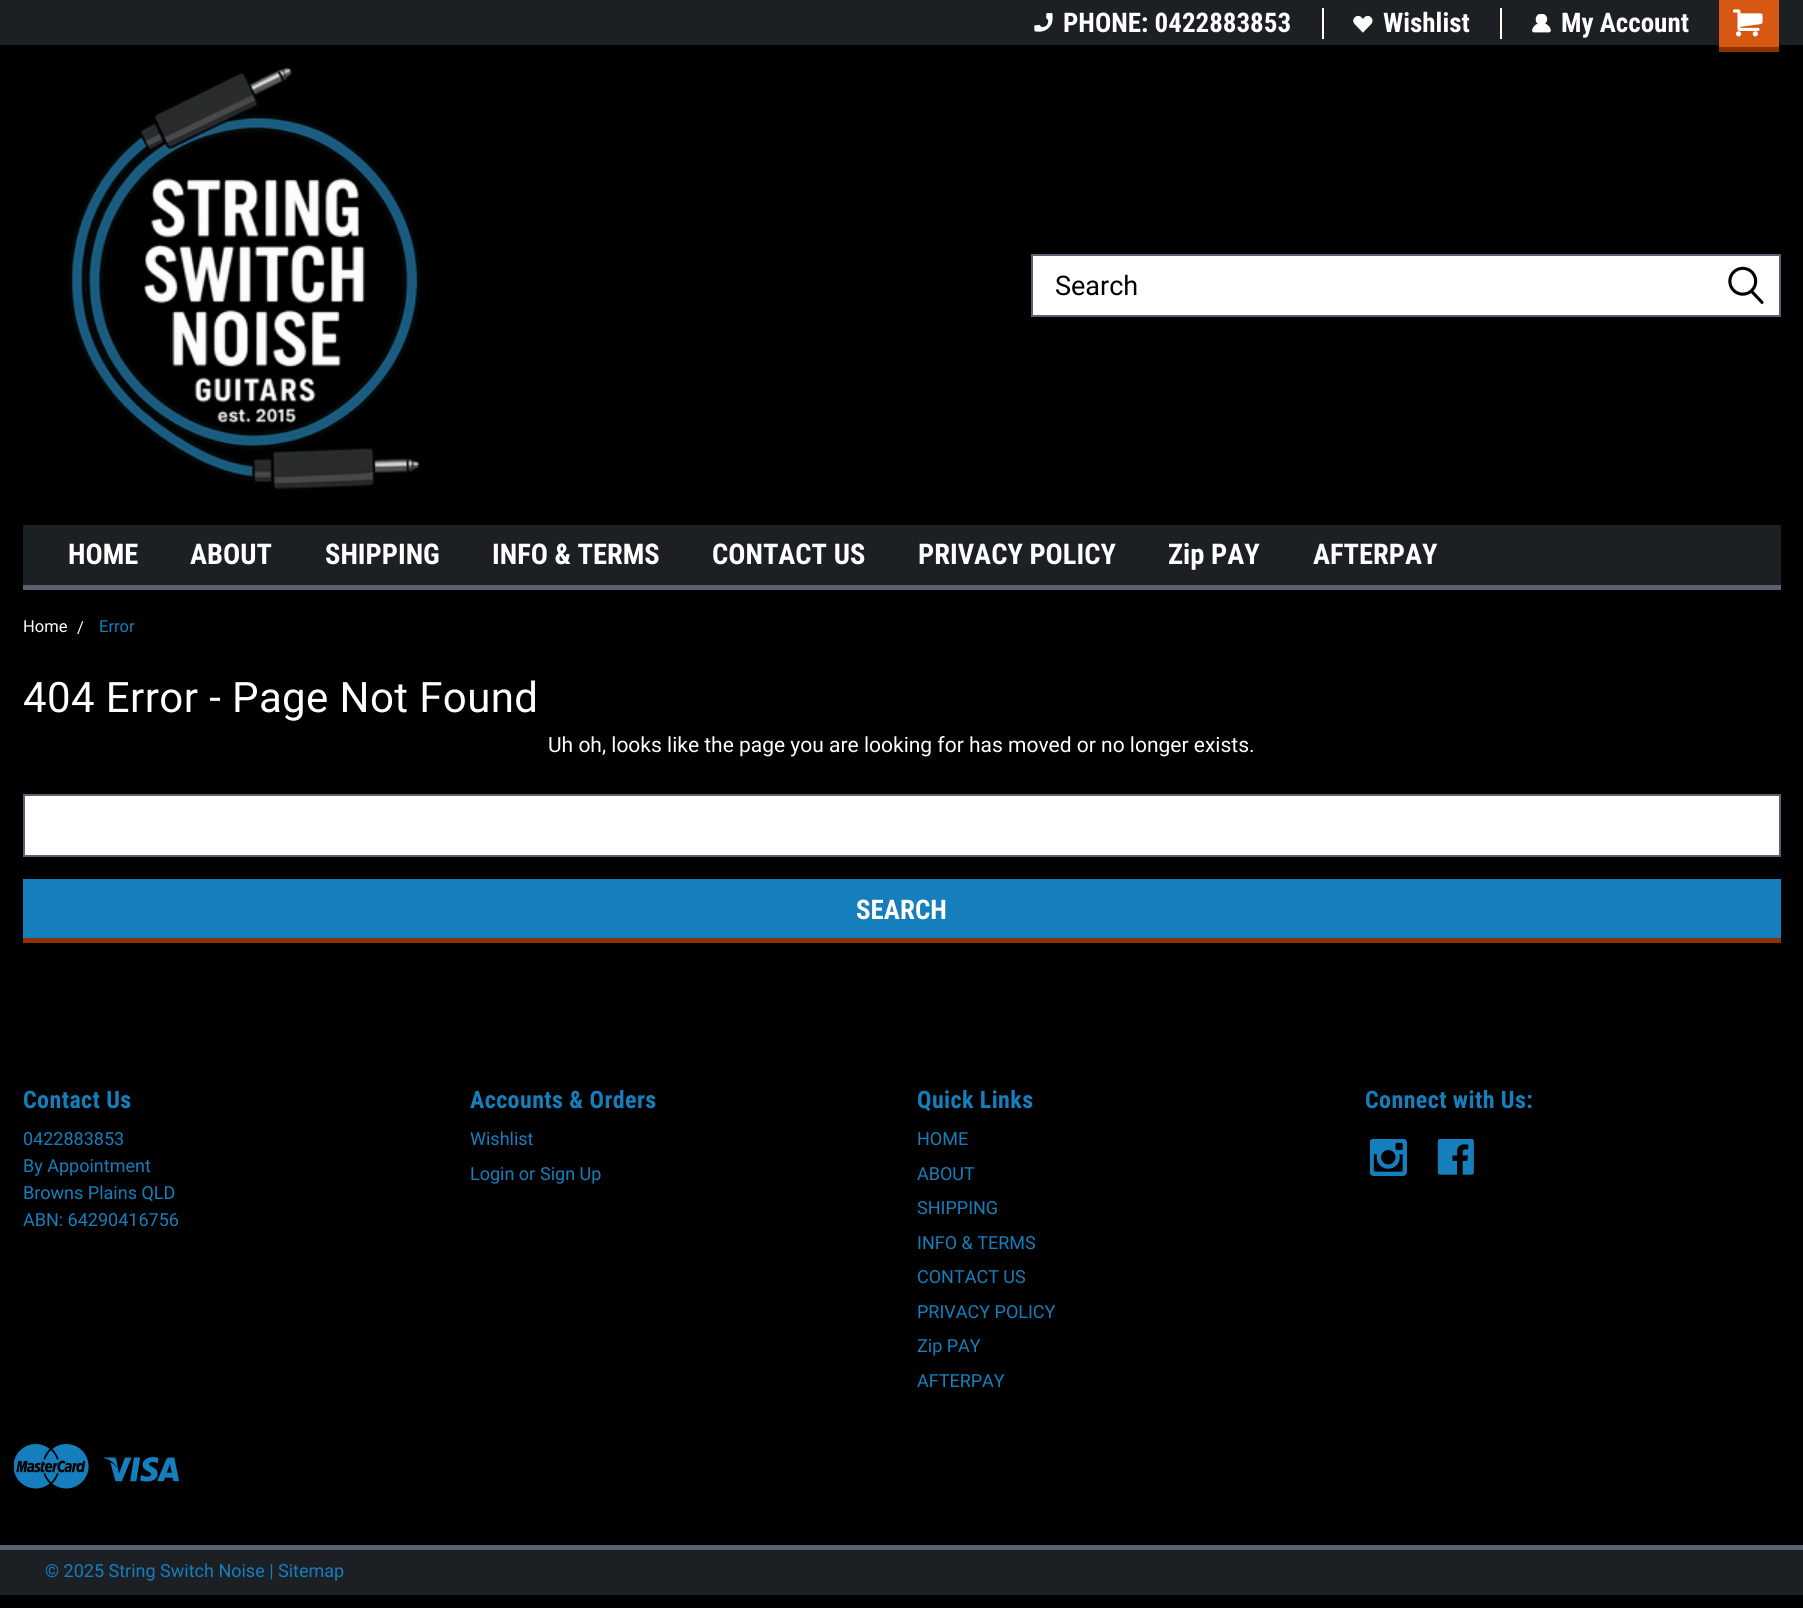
import math
import cairocffi as cairo

surface = cairo.ImageSurface(cairo.FORMAT_RGB24, 1803, 1608)
ctx = cairo.Context(surface)
options = cairo.FontOptions()
options.set_hint_metrics(cairo.HINT_METRICS_OFF)
options.set_hint_style(cairo.HINT_STYLE_NONE)
ctx.set_font_options(options)
ctx.set_miter_limit(4)


def rgb(r, g, b):
    ctx.set_source_rgb(r / 255, g / 255, b / 255)


def face(family, size, italic, bold):
    ctx.select_font_face(family, cairo.FONT_SLANT_ITALIC if italic else cairo.FONT_SLANT_NORMAL, cairo.FONT_WEIGHT_BOLD if bold else cairo.FONT_WEIGHT_NORMAL)
    ctx.set_font_size(size)


def label(x, y, s):
    ctx.move_to(x, y)
    ctx.show_text(s)


def tracked(x, y, s, letter, word):
    ctx.move_to(x, y)
    for ch in s:
        ctx.show_text(ch)
        ctx.rel_move_to(letter + word * (ch == ' '), 0)


def rect(x, y, w, h):
    ctx.rectangle(x, y, w, h)
    ctx.fill()


def image(path, x, y, w, h):
    ctx.save()
    ctx.set_source_surface(cairo.ImageSurface.create_from_png(path), x, y)
    ctx.rectangle(x, y, w, h)
    ctx.fill()
    ctx.restore()


rgb(0, 0, 0)
ctx.paint()
rgb(28, 31, 36)
rect(0, 0, 1803, 45)
rgb(255, 255, 255)
rect(1322, 8, 2, 31)
image('image0.png', 1034, 13, 19, 19)
face('Roboto Condensed', 27, 0, 1)
label(1063, 32, 'PHONE: 0422883853')
rect(1500, 8, 2, 31)
image('image1.png', 1353, 15, 20, 18)
label(1383, 32, 'Wishlist')
image('image2.png', 1532, 14, 19, 19)
label(1561, 32, 'My Account')
rgb(215, 88, 19)
rect(1719, 0, 60, 47)
rgb(143, 50, 0)
rect(1719, 47, 60, 5)
image('image3.png', 1733, 9, 30, 28)
image('image4.png', 68, 67, 353, 423)
rgb(255, 255, 255)
ctx.rectangle(1032, 255, 748, 61)
ctx.fill_preserve()
rgb(91, 96, 115)
ctx.stroke()
face('Roboto', 27, 0, 0)
rgb(0, 0, 0)
label(1055, 295, 'Search')
image('image5.png', 1728, 266, 36, 38)
rgb(28, 31, 36)
rect(23, 525, 1758, 60)
rgb(91, 96, 115)
rect(23, 585, 1758, 5)
face('Roboto Condensed', 28.5, 0, 1)
rgb(255, 255, 255)
label(68, 564, 'HOME')
label(190, 564, 'ABOUT')
label(325, 564, 'SHIPPING')
label(492, 564, 'INFO & TERMS')
label(712, 564, 'CONTACT US')
label(918, 564, 'PRIVACY POLICY')
label(1168, 564, 'Zip PAY')
label(1313, 564, 'AFTERPAY')
face('Roboto', 16.5, 0, 0)
label(23, 632, 'Home')
label(77, 633, '/')
rgb(21, 126, 188)
label(99, 632, 'Error')
face('Roboto', 42, 0, 0)
rgb(255, 255, 255)
tracked(23, 712, '404 Error - Page Not Found', 0.4, 0)
face('Roboto', 21, 0, 0)
label(548, 752, 'Uh oh, looks like the page you are looking for has moved or no longer exists.')
ctx.rectangle(24, 795, 1756, 61)
ctx.fill_preserve()
rgb(91, 96, 115)
ctx.stroke()
rgb(21, 126, 188)
rect(23, 879, 1758, 59)
rgb(143, 50, 0)
rect(23, 938, 1758, 5)
face('Roboto Condensed', 27, 0, 1)
rgb(255, 255, 255)
label(856, 919, 'SEARCH')
face('Roboto Condensed', 24, 0, 1)
rgb(21, 126, 188)
tracked(23, 1108, 'Contact Us', 0.4, 0)
face('Roboto', 18, 0, 0)
label(23, 1145, '0422883853')
label(23, 1172, 'By Appointment')
label(23, 1199, 'Browns Plains QLD')
label(23, 1226, 'ABN: 64290416756')
face('Roboto Condensed', 24, 0, 1)
tracked(470, 1108, 'Accounts & Orders', 0.4, 0)
face('Roboto', 18, 0, 0)
label(470, 1145, 'Wishlist')
label(470, 1180, 'Login or')
label(540, 1180, 'Sign Up')
face('Roboto Condensed', 24, 0, 1)
tracked(917, 1108, 'Quick Links', 0.4, 0)
face('Roboto', 18, 0, 0)
label(917, 1145, 'HOME')
label(917, 1180, 'ABOUT')
label(917, 1214, 'SHIPPING')
label(917, 1249, 'INFO & TERMS')
label(917, 1283, 'CONTACT US')
label(917, 1318, 'PRIVACY POLICY')
label(917, 1352, 'Zip PAY')
label(917, 1387, 'AFTERPAY')
face('Roboto Condensed', 24, 0, 1)
tracked(1365, 1108, 'Connect with Us:', 0.4, 0)
image('image6.png', 1370, 1139, 37, 37)
image('image7.png', 1437, 1139, 37, 36)
image('image8.png', 14, 1444, 75, 45)
image('image9.png', 104, 1457, 75, 25)
rgb(28, 31, 36)
rect(0, 1550, 1803, 45)
rgb(91, 96, 115)
rect(0, 1545, 1803, 5)
face('Roboto', 18, 0, 0)
rgb(21, 126, 188)
label(45, 1577, '© 2025 String Switch Noise | Sitemap')
surface.write_to_png('render.png')
